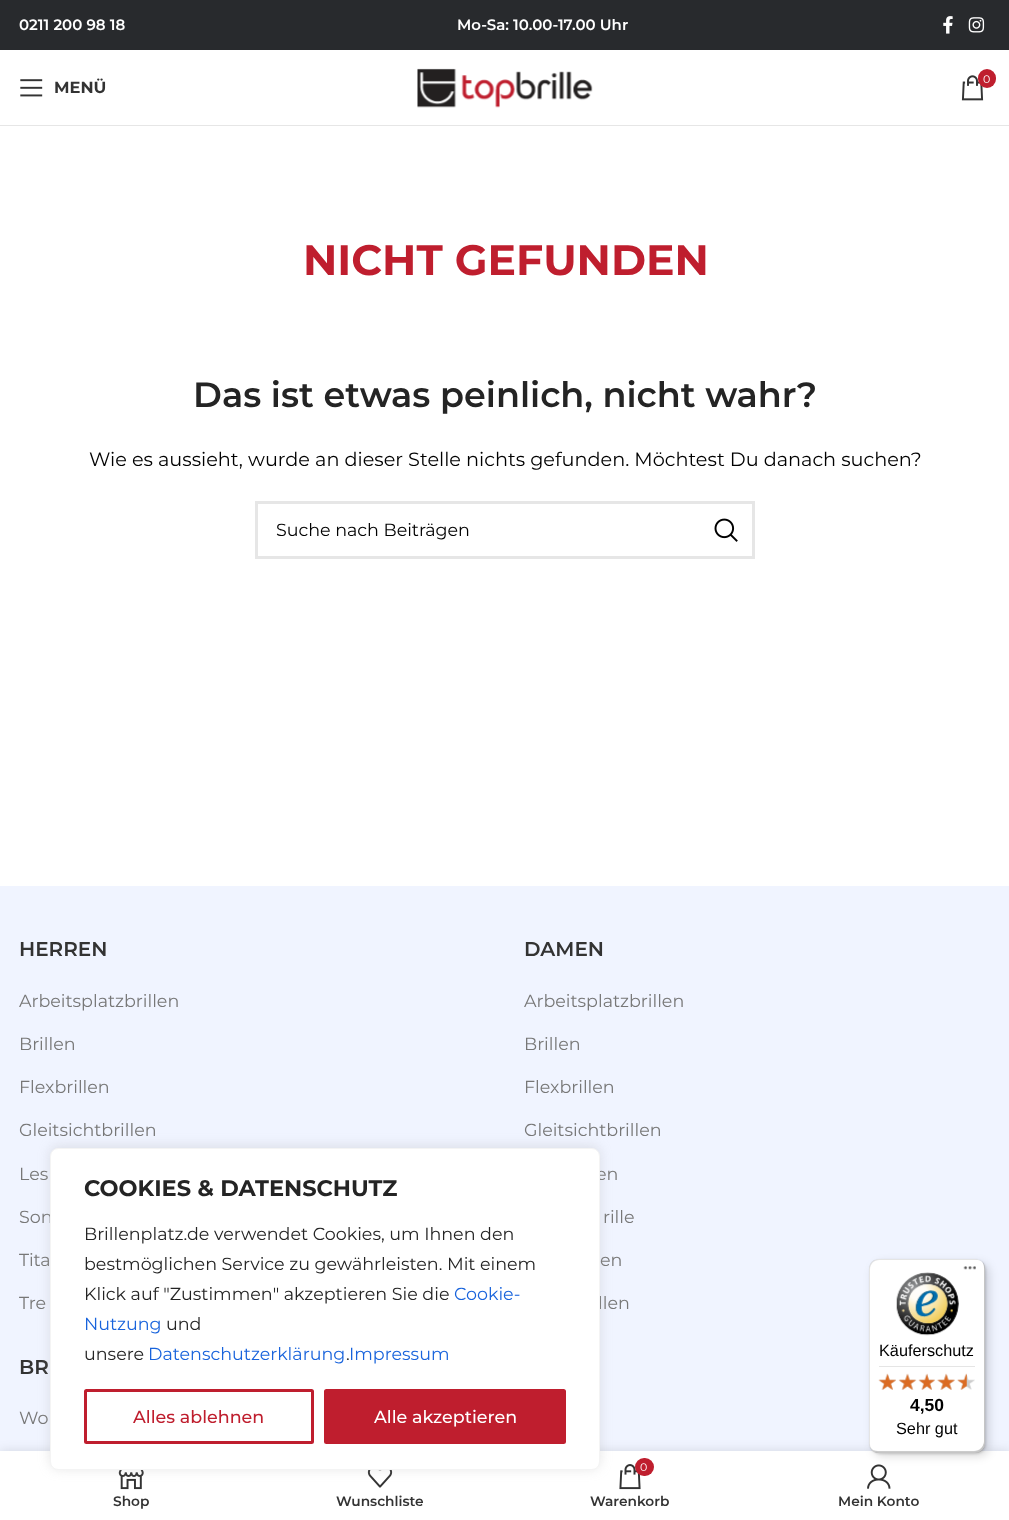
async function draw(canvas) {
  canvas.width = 1009;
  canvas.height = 1520;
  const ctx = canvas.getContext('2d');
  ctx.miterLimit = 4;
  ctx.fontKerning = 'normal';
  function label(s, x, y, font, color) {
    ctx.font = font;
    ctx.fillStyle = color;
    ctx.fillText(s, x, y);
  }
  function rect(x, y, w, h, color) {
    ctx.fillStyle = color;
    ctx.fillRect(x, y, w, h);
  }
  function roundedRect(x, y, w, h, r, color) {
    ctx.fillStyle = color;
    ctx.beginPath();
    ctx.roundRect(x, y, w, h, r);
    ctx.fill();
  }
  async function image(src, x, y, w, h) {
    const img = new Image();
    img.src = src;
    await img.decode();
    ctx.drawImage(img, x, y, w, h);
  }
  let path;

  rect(0, 0, 1009, 1520, '#fff');
  rect(0, 0, 1009, 50, '#282a2d');
  label('0211 200 98 18', 19, 30, '600 15px Montserrat', '#fff');
  label('Mo-Sa: 10.00-17.00 Uhr', 457, 30, '600 15px Montserrat', '#fff');
  await image('assets/img1.png', 943, 16, 10, 18);
  await image('assets/img2.png', 968, 17, 17, 16);
  rect(0, 125, 1009, 1, '#e6e6e6');
  await image('assets/img3.png', 20, 79, 23, 18);
  label('MENÜ', 54, 93, 'bold 16.25px Montserrat', '#333');
  await image('assets/img4.png', 417, 68, 176, 40);
  await image('assets/img5.png', 961, 75, 23, 26);
  roundedRect(978, 69, 18, 19, 9, '#bf1e2e');
  label('0', 983, 83, '11px Montserrat', '#fff');
  label('NICHT GEFUNDEN', 303, 275, 'bold 42.5px Montserrat', '#bf1e2e');
  label('Das ist etwas peinlich, nicht wahr?', 193, 407, '600 35px Montserrat', '#242424');
  label('Wie es aussieht, wurde an dieser Stelle nichts gefunden. Möchtest Du danach suchen?', 89, 466, '19.25px Montserrat', '#000');
  ctx.strokeStyle = '#e6e6e6';
  ctx.lineWidth = 3;
  ctx.strokeRect(256.5, 502.5, 497, 55);
  label('Suche nach Beiträgen', 276, 536, '17.5px Montserrat', '#000');
  await image('assets/img6.png', 714, 518, 24, 24);
  rect(0, 886, 1009, 565, '#f0f4ff');
  label('HERREN', 19, 956, '600 20px Montserrat', '#333');
  label('Arbeitsplatzbrillen', 19, 1007, '17.5px Montserrat', '#777');
  label('Brillen', 19, 1050, '17.5px Montserrat', '#777');
  label('Flexbrillen', 19, 1093, '17.5px Montserrat', '#777');
  label('Gleitsichtbrillen', 19, 1136, '17.5px Montserrat', '#777');
  label('Les', 19, 1180, '17.5px Montserrat', '#777');
  label('Son', 19, 1223, '17.5px Montserrat', '#777');
  label('Tita', 19, 1266, '17.5px Montserrat', '#777');
  label('Tre', 19, 1309, '17.5px Montserrat', '#777');
  label('DAMEN', 524, 956, '600 20px Montserrat', '#333');
  label('Arbeitsplatzbrillen', 524, 1007, '17.5px Montserrat', '#777');
  label('Brillen', 524, 1050, '17.5px Montserrat', '#777');
  label('Flexbrillen', 524, 1093, '17.5px Montserrat', '#777');
  label('Gleitsichtbrillen', 524, 1136, '17.5px Montserrat', '#777');
  label('en', 596, 1180, '17.5px Montserrat', '#777');
  label('rille', 603, 1223, '17.5px Montserrat', '#777');
  label('en', 600, 1266, '17.5px Montserrat', '#777');
  label('llen', 598, 1309, '17.5px Montserrat', '#777');
  label('BR', 19, 1374, '600 20px Montserrat', '#333');
  label('Wo', 19, 1424, '17.5px Montserrat', '#777');
  ctx.fillStyle = '#0000001f';
  ctx.filter = 'blur(5.5px)';
  ctx.beginPath();
  ctx.rect(0, 1451, 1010, 69);
  ctx.fill();
  ctx.filter = 'none';
  rect(0, 1451, 1009, 69, '#fff');
  await image('assets/img19.png', 118, 1470, 26, 20);
  await image('assets/img20.png', 367, 1470, 26, 18);
  ctx.fillStyle = '#acabab4d';
  ctx.filter = 'blur(6px)';
  ctx.beginPath();
  ctx.roundRect(50, 1146, 550, 323, 8);
  ctx.fill();
  ctx.filter = 'none';
  ctx.fillStyle = '#fff';
  ctx.beginPath();
  ctx.roundRect(50.5, 1148.5, 549, 321, 7.5);
  ctx.fill();
  ctx.strokeStyle = '#f4f4f4';
  ctx.lineWidth = 1;
  ctx.stroke();
  label('COOKIES & DATENSCHUTZ', 84, 1196, 'bold 22.5px Montserrat', '#242424');
  label('Brillenplatz.de verwendet Cookies, um Ihnen den', 84, 1240, '17.5px Montserrat', '#242424');
  label('bestmöglichen Service zu gewährleisten. Mit einem', 84, 1270, '17.5px Montserrat', '#242424');
  label('Klick auf "Zustimmen" akzeptieren Sie die', 84, 1300, '17.5px Montserrat', '#242424');
  label('Cookie-', 454, 1300, '17.5px Montserrat', '#1863dc');
  label('Nutzung', 84, 1330, '17.5px Montserrat', '#1863dc');
  label('und', 166, 1330, '17.5px Montserrat', '#242424');
  label('unsere', 84, 1360, '17.5px Montserrat', '#242424');
  label('Datenschutzerklärung', 148, 1360, '17.5px Montserrat', '#1863dc');
  label('.', 346, 1360, '17.5px Montserrat', '#242424');
  label('Impressum', 349, 1360, '17.5px Montserrat', '#1863dc');
  ctx.beginPath();
  ctx.roundRect(85.5, 1390.5, 227, 52, 1);
  ctx.strokeStyle = '#bf1e2e';
  ctx.lineWidth = 3;
  ctx.stroke();
  label('Alles ablehnen', 133, 1423, '500 17.5px Montserrat', '#bf1e2e');
  ctx.beginPath();
  ctx.roundRect(325.5, 1390.5, 239, 52, 1);
  ctx.fill();
  ctx.stroke();
  label('Alle akzeptieren', 374, 1423, '500 17.5px Montserrat', '#fff');
  await image('assets/img22.png', 867, 1464, 24, 25);
  ctx.fillStyle = '#00000026';
  ctx.filter = 'blur(5px)';
  ctx.beginPath();
  ctx.roundRect(873, 1263, 116, 193, 10);
  ctx.fill();
  ctx.filter = 'none';
  ctx.filter = 'blur(1px)';
  ctx.beginPath();
  ctx.roundRect(870, 1260, 116, 194, 10);
  ctx.fill();
  ctx.filter = 'none';
  roundedRect(869, 1259, 116, 194, 10, '#fff');
  ctx.fillStyle = '#0000001a';
  path = new Path2D('M880 1260H976C978 1260 980 1260 981 1261C980 1260 977 1259 975 1259H879C873 1259 869 1263 869 1269V1443C869 1446 870 1449 873 1451C871 1449 870 1446 870 1444V1270C870 1264 874 1260 880 1260Z');
  ctx.fill(path);
  ctx.fillStyle = '#00000033';
  path = new Path2D('M870 1447C872 1451 875 1453 879 1453H975C981 1453 985 1449 985 1443V1269C985 1266 984 1263 982 1261C983 1263 984 1265 984 1268V1441C984 1447 979 1451 974 1451H878C875 1451 872 1450 870 1447Z');
  ctx.fill(path);
  ctx.fillStyle = '#32323233';
  path = new Path2D('M871 1450C873 1452 876 1453 879 1453H975C981 1453 985 1449 985 1443V1269C985 1267 984 1264 983 1263C984 1264 984 1266 984 1268V1442C984 1447 980 1452 974 1452H878C875 1452 873 1451 871 1450Z');
  ctx.fill(path);
  ctx.fillStyle = '#ffffff4d';
  path = new Path2D('M870 1448C872 1451 875 1453 879 1453H975C981 1453 985 1449 985 1443V1269C985 1266 984 1263 981 1261C983 1263 984 1266 984 1268V1442C984 1447 980 1452 974 1452H878C875 1452 872 1450 870 1448Z');
  ctx.fill(path);
  await image('assets/img7.png', 963, 1266, 13, 4);
  await image('assets/img8.png', 896, 1272, 63, 64);
  label('Käuferschutz', 879, 1356, '16.25px Liberation Sans', '#000');
  rect(879, 1366, 96, 1, '#e5e5e5');
  await image('assets/img14.png', 879, 1374, 17, 16);
  await image('assets/img9.png', 878, 1373, 18, 17);
  await image('assets/img15.png', 899, 1374, 17, 16);
  await image('assets/img10.png', 898, 1373, 19, 17);
  await image('assets/img16.png', 919, 1374, 16, 16);
  await image('assets/img11.png', 918, 1373, 17, 17);
  await image('assets/img17.png', 937, 1374, 18, 16);
  await image('assets/img12.png', 937, 1373, 18, 17);
  await image('assets/img18.png', 957, 1374, 18, 16);
  await image('assets/img13.png', 957, 1373, 10, 17);
  label('4,50', 910, 1411, 'bold 17.5px Liberation Sans', '#000');
  label('Sehr gut', 896, 1434, '16.25px Liberation Sans', '#000');
  label('Shop', 113, 1506, '600 13.75px Montserrat', '#333');
  label('Wunschliste', 336, 1506, '600 13.75px Montserrat', '#333');
  await image('assets/img21.png', 619, 1464, 22, 26);
  roundedRect(635, 1458, 19, 18, 9, '#bf1e2e');
  label('0', 640, 1471, '11px Montserrat', '#fff');
  label('Warenkorb', 590, 1506, '600 13.75px Montserrat', '#333');
  label('Mein Konto', 838, 1506, '600 13.75px Montserrat', '#333');
}

draw(document.querySelector('canvas'));
